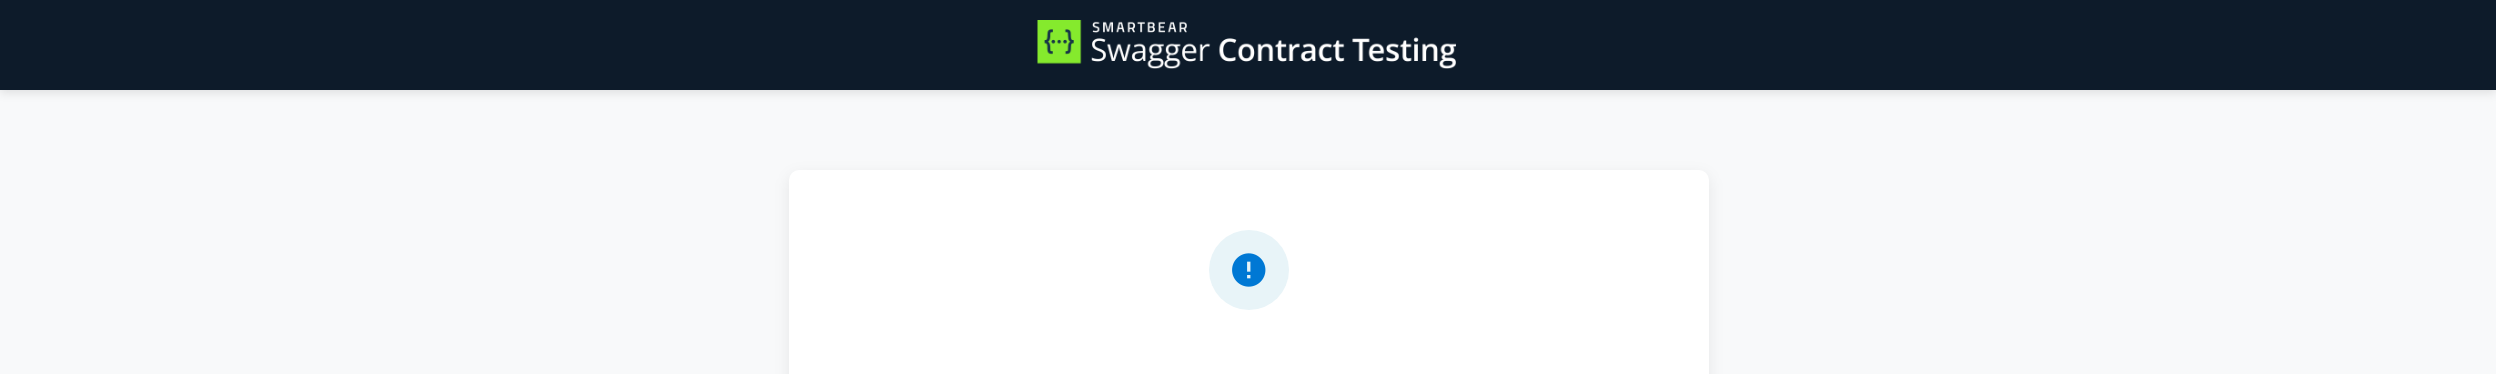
async function draw(canvas) {
  canvas.width = 2496;
  canvas.height = 374;
  const ctx = canvas.getContext('2d');
  ctx.miterLimit = 4;
  ctx.fontKerning = 'normal';
  function rect(x, y, w, h, color) {
    ctx.fillStyle = color;
    ctx.fillRect(x, y, w, h);
  }
  function roundedRect(x, y, w, h, r, color) {
    ctx.fillStyle = color;
    ctx.beginPath();
    ctx.roundRect(x, y, w, h, r);
    ctx.fill();
  }
  async function image(src, x, y, w, h) {
    const img = new Image();
    img.src = src;
    await img.decode();
    ctx.drawImage(img, x, y, w, h);
  }

  rect(0, 0, 2496, 374, '#f8f9fa');
  ctx.fillStyle = '#0000001a';
  ctx.filter = 'blur(5px)';
  ctx.beginPath();
  ctx.rect(0, 3, 2496, 90);
  ctx.fill();
  ctx.filter = 'none';
  rect(0, 0, 2496, 90, '#0d1b2a');
  await image('assets/img1.png', 1037, 20, 419, 49);
  ctx.fillStyle = '#00000014';
  ctx.filter = 'blur(7.5px)';
  ctx.beginPath();
  ctx.roundRect(789, 175, 920, 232, 10);
  ctx.fill();
  ctx.filter = 'none';
  roundedRect(789, 170, 920, 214, 10, '#fff');
  ctx.fillStyle = '#e8f4f8';
  ctx.beginPath();
  ctx.arc(1249, 270, 40, 0, 2 * Math.PI);
  ctx.fill();
  await image('assets/img2.png', 1232, 253, 34, 34);
}

draw(document.querySelector('canvas'));
